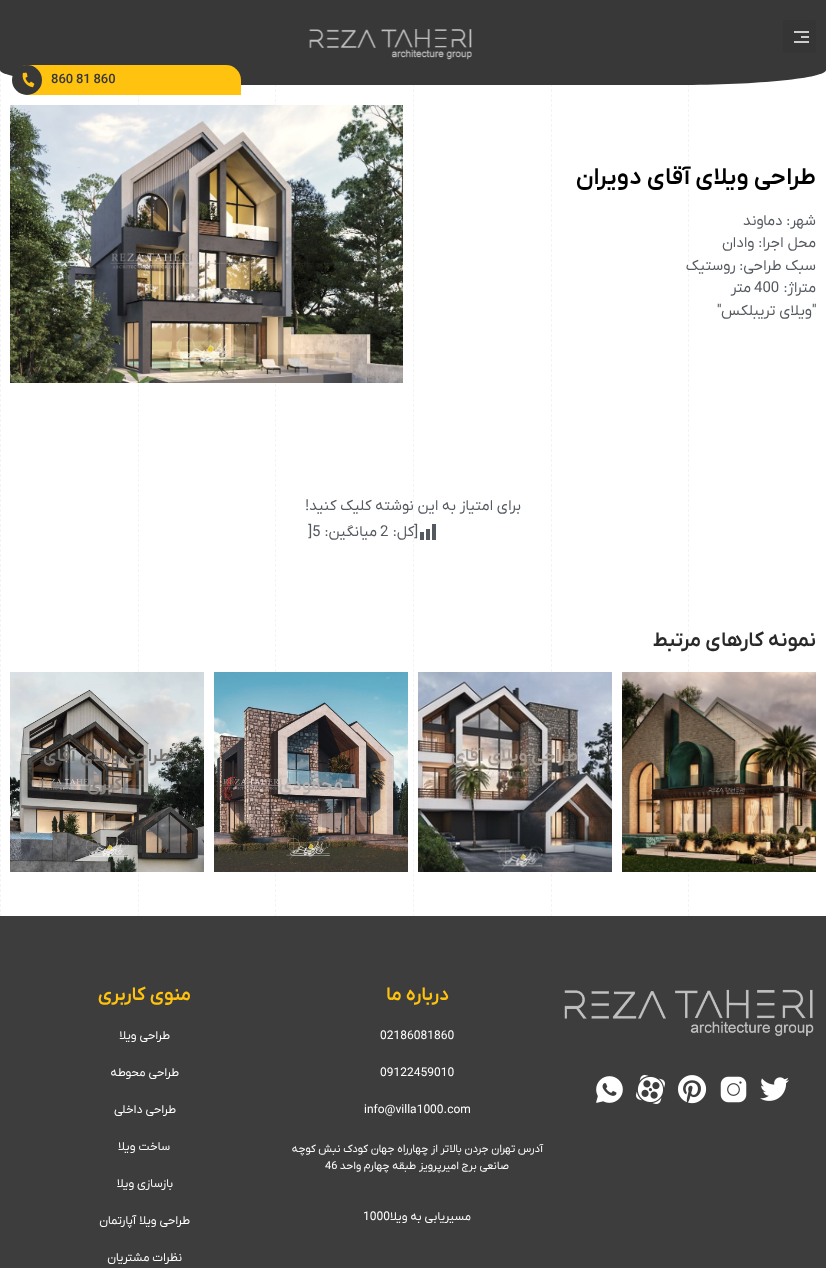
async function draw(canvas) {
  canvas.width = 826;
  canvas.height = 1268;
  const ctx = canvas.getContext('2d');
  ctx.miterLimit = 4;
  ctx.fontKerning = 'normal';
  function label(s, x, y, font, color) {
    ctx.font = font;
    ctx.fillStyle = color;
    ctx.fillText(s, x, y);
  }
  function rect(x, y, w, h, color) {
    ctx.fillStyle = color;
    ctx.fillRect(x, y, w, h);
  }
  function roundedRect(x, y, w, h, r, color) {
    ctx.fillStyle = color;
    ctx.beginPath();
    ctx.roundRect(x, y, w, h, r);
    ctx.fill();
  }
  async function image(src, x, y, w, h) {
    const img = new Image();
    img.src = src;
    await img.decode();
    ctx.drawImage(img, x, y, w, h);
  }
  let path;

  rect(0, 0, 826, 1268, '#fff');
  path = new Path2D('M688.5-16V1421');
  ctx.strokeStyle = '#f4f4f4';
  ctx.setLineDash([3, 2]);
  ctx.stroke(path);
  path = new Path2D('M551.5-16V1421');
  ctx.stroke(path);
  path = new Path2D('M413.5-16V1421');
  ctx.stroke(path);
  path = new Path2D('M275.5-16V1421');
  ctx.stroke(path);
  path = new Path2D('M138.5-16V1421');
  ctx.stroke(path);
  path = new Path2D('M.5-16V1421');
  ctx.stroke(path);
  ctx.fillStyle = '#383838';
  path = new Path2D('M0 0H826V70C826 78 759 85 677 85H149C67 85 0 78 0 70Z');
  ctx.fill(path);
  roundedRect(783, 20, 33, 33, 3, '#353535');
  rect(794, 31, 15, 2, '#cdcdcd');
  rect(801, 36, 8, 2, '#cdcdcd');
  rect(794, 41, 15, 2, '#cdcdcd');
  await image('assets/img1.png', 309, 29, 163, 31);
  ctx.fillStyle = '#ffc20e';
  ctx.beginPath();
  ctx.roundRect(13, 65, 228, 30, [15, 15, 0, 15]);
  ctx.fill();
  label('860 81 860', 51, 83, '600 13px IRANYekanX', '#383838');
  ctx.beginPath();
  ctx.arc(27, 80, 15, 0, 2 * Math.PI);
  ctx.fill();
  await image('assets/img2.png', 22, 72, 13, 16);
  ctx.direction = 'rtl';
  label('طراحی ویلای آقای دویران', 816, 184, '600 24px IRANYekanX', '#000');
  label('شهر: دماوند', 816, 225, '15px IRANYekanX', '#54595f');
  label('محل اجرا: وادان', 816, 247, '15px IRANYekanX', '#54595f');
  label('سبک طراحی: روستیک', 816, 270, '15px IRANYekanX', '#54595f');
  label('متراژ:', 816, 292, '15px IRANYekanX', '#54595f');
  ctx.direction = 'ltr';
  label('400', 754, 292, '15px IRANYekanX', '#54595f');
  ctx.direction = 'rtl';
  label('متر', 751, 292, '15px IRANYekanX', '#54595f');
  label('"ویلای تریبلکس"', 816, 315, '15px IRANYekanX', '#54595f');
  await image('assets/img3.png', 10, 105, 393, 278);
  label('برای امتیاز به این نوشته کلیک کنید!', 521, 510, '15px IRANYekanX', '#54595f');
  await image('assets/img4.png', 420, 524, 16, 16);
  label('[کل:', 418, 536, '15px IRANYekanX', '#54595f');
  ctx.direction = 'ltr';
  label('2', 380, 536, '15px IRANYekanX', '#54595f');
  ctx.direction = 'rtl';
  label('میانگین:', 377, 536, '15px IRANYekanX', '#54595f');
  ctx.direction = 'ltr';
  label('5', 312, 536, '15px IRANYekanX', '#54595f');
  label(']', 308, 536, '15px IRANYekanX', '#54595f');
  ctx.direction = 'rtl';
  label('نمونه کارهای مرتبط', 816, 646, '600 20.5px IRANYekanX', '#292929');
  await image('assets/img5.png', 622, 672, 194, 200);
  await image('assets/img6.png', 418, 672, 194, 200);
  label('طراحی ویلای آقای', 578, 761, '600 18px IRANYekanX', '#a39890');
  await image('assets/img7.png', 10, 672, 194, 200);
  label('طراحی ویلای آقای', 170, 761, '600 18px IRANYekanX', '#797571');
  label('اکبری', 127, 790, '600 18px IRANYekanX', '#88817c');
  await image('assets/img8.png', 214, 672, 194, 200);
  label('محمودی', 343, 790, '600 18px IRANYekanX', '#b3afae');
  rect(0, 916, 826, 352, '#3d3d3d');
  await image('assets/img9.png', 564, 989, 250, 47);
  await image('assets/img10.png', 760, 1077, 29, 24);
  await image('assets/img11.png', 720, 1076, 27, 27);
  await image('assets/img12.png', 678, 1075, 29, 29);
  await image('assets/img13.png', 636, 1075, 29, 29);
  await image('assets/img14.png', 596, 1076, 27, 27);
  label('درباره ما', 449, 1000, '600 19px IRANYekanX', '#ffc20e');
  ctx.direction = 'ltr';
  label('02186081860', 380, 1039, '12px IRANYekanX', '#fff');
  label('09122459010', 380, 1076, '12px IRANYekanX', '#fff');
  label('info@villa1000.com', 364, 1113, '12px IRANYekanX', '#fff');
  ctx.direction = 'rtl';
  label('آدرس تهران جردن بالاتر از چهارراه جهان کودک نبش کوچه', 543, 1152, '11px IRANYekanX', '#fff');
  label('صانعی برج امیرپرویز طبقه چهارم واحد', 509, 1169, '11px IRANYekanX', '#fff');
  ctx.direction = 'ltr';
  label('46', 325, 1169, '11px IRANYekanX', '#fff');
  ctx.direction = 'rtl';
  label('مسیریابی به ویلا', 471, 1220, '12px IRANYekanX', '#fff');
  ctx.direction = 'ltr';
  label('1000', 363, 1220, '12px IRANYekanX', '#fff');
  ctx.direction = 'rtl';
  label('منوی کاربری', 191, 1000, '600 19px IRANYekanX', '#ffc20e');
  label('طراحی ویلا', 170, 1039, '12px IRANYekanX', '#fff');
  label('طراحی محوطه', 179, 1076, '12px IRANYekanX', '#fff');
  label('طراحی داخلی', 176, 1113, '12px IRANYekanX', '#fff');
  label('ساخت ویلا', 170, 1150, '12px IRANYekanX', '#fff');
  label('بازسازی ویلا', 173, 1187, '12px IRANYekanX', '#fff');
  label('طراحی ویلا آپارتمان', 190, 1224, '12px IRANYekanX', '#fff');
  label('نظرات مشتریان', 182, 1261, '12px IRANYekanX', '#fff');
}

draw(document.querySelector('canvas'));
